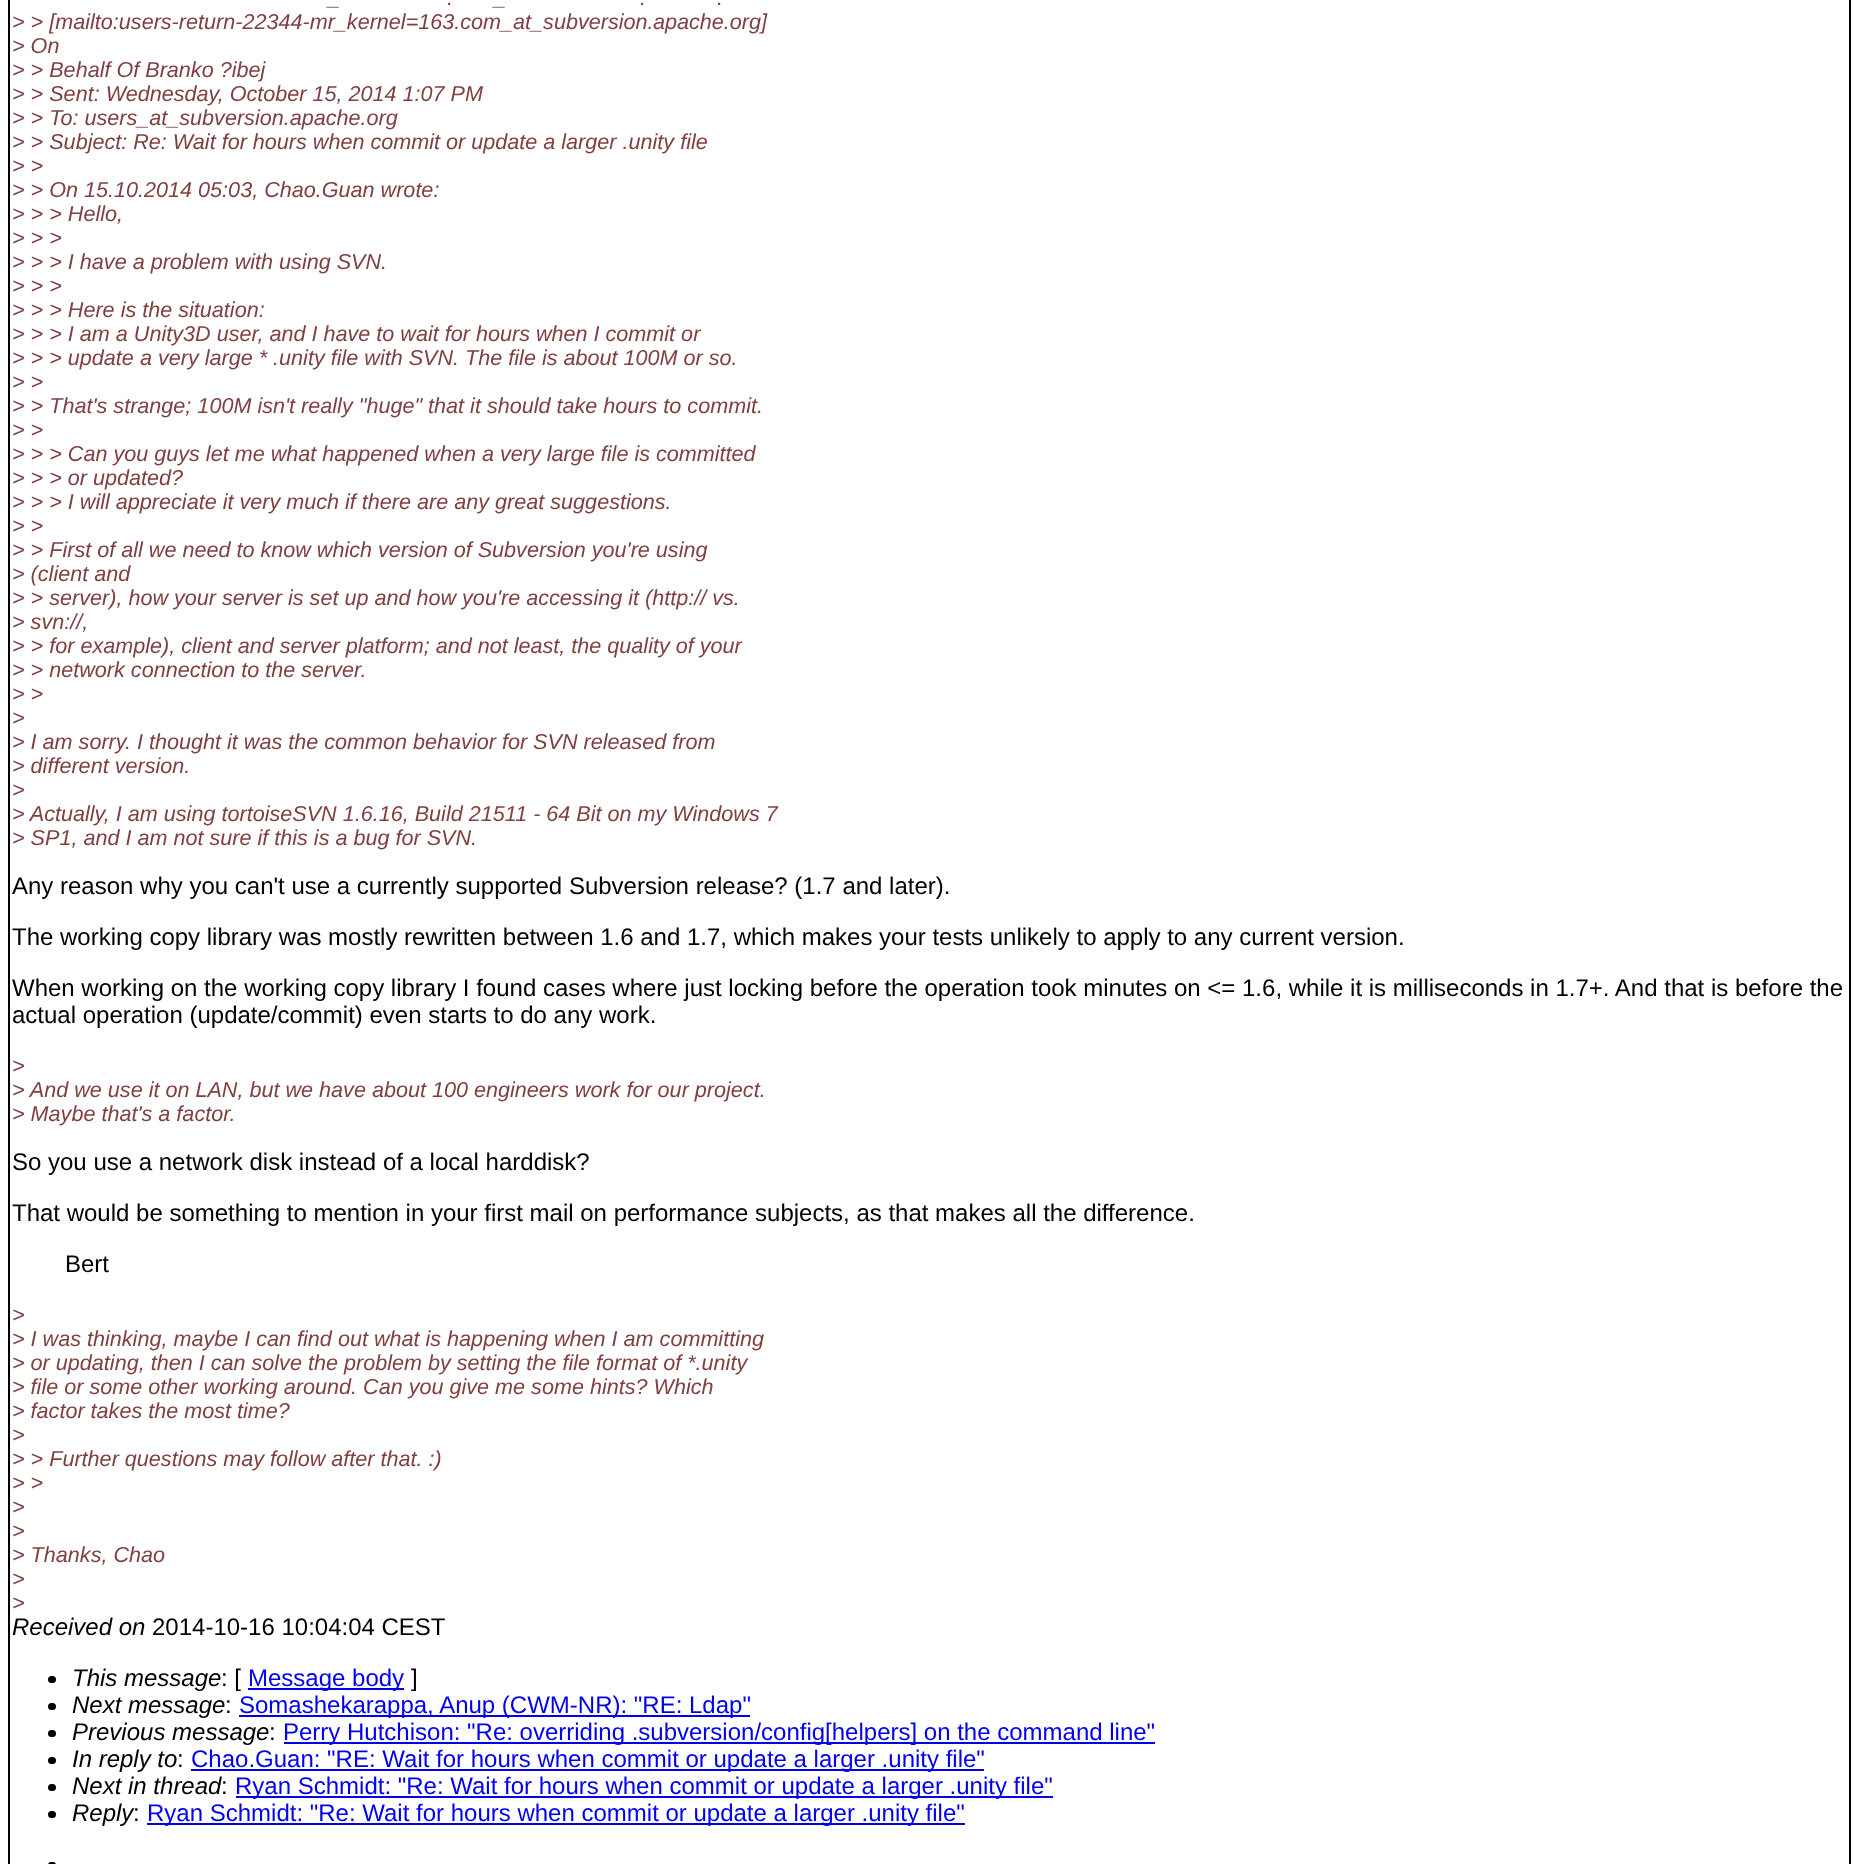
async function draw(canvas) {
  canvas.width = 1864;
  canvas.height = 1864;
  const ctx = canvas.getContext('2d');
  ctx.miterLimit = 4;
  ctx.fontKerning = 'normal';
  function label(s, x, y, font, color) {
    ctx.font = font;
    ctx.fillStyle = color;
    ctx.fillText(s, x, y);
  }
  function rect(x, y, w, h, color) {
    ctx.fillStyle = color;
    ctx.fillRect(x, y, w, h);
  }
  function roundedRect(x, y, w, h, r, color) {
    ctx.fillStyle = color;
    ctx.beginPath();
    ctx.roundRect(x, y, w, h, r);
    ctx.fill();
  }

  rect(0, 0, 1864, 1864, '#fff');
  ctx.strokeStyle = '#000';
  ctx.lineWidth = 2;
  ctx.strokeRect(9, -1, 1841, 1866);
  label('.', 447, 5, 'italic 21.6px Liberation Sans', '#804040');
  label('.', 640, 5, 'italic 21.6px Liberation Sans', '#804040');
  label('.', 717, 5, 'italic 21.6px Liberation Sans', '#804040');
  label('_', 328, 5, 'italic 21.6px Liberation Sans', '#804040');
  label('_', 494, 5, 'italic 21.6px Liberation Sans', '#804040');
  label('> > [mailto:users-return-22344-mr_kernel=163.com_at_subversion.', 12, 29, 'italic 21.6px Liberation Sans', '#804040');
  label('apache.org]', 653, 29, 'italic 21.6px Liberation Sans', '#804040');
  label('> On', 12, 53, 'italic 21.6px Liberation Sans', '#804040');
  label('> > Behalf Of Branko ?ibej', 12, 77, 'italic 21.6px Liberation Sans', '#804040');
  label('> > Sent: Wednesday, October 15, 2014 1:07 PM', 12, 101, 'italic 21.6px Liberation Sans', '#804040');
  label('> > To: users_at_subversion.apache.org', 12, 125, 'italic 21.6px Liberation Sans', '#804040');
  label('> > Subject: Re: Wait for hours when commit or update a larger .unity file', 12, 149, 'italic 21.6px Liberation Sans', '#804040');
  label('> >', 12, 173, 'italic 21.6px Liberation Sans', '#804040');
  label('> > On 15.10.2014 05:03, Chao.Guan wrote:', 12, 197, 'italic 21.6px Liberation Sans', '#804040');
  label('> > > Hello,', 12, 221, 'italic 21.6px Liberation Sans', '#804040');
  label('> > >', 12, 245, 'italic 21.6px Liberation Sans', '#804040');
  label('> > > I have a problem with using SVN.', 12, 269, 'italic 21.6px Liberation Sans', '#804040');
  label('> > >', 12, 293, 'italic 21.6px Liberation Sans', '#804040');
  label('> > > Here is the situation:', 12, 317, 'italic 21.6px Liberation Sans', '#804040');
  label('> > > I am a Unity3D user, and I have to wait for hours when I commit or', 12, 341, 'italic 21.6px Liberation Sans', '#804040');
  label('> > > update a very large * .unity file with SVN. The file is about 100M or so.', 12, 365, 'italic 21.6px Liberation Sans', '#804040');
  label('> >', 12, 389, 'italic 21.6px Liberation Sans', '#804040');
  label('> > That\'s strange; 100M isn\'t really "huge" that it should take hours to commit.', 12, 413, 'italic 21.6px Liberation Sans', '#804040');
  label('> >', 12, 437, 'italic 21.6px Liberation Sans', '#804040');
  label('> > > Can you guys let me what happened when a very large file is committed', 12, 461, 'italic 21.6px Liberation Sans', '#804040');
  label('> > > or updated?', 12, 485, 'italic 21.6px Liberation Sans', '#804040');
  label('> > > I will appreciate it very much if there are any great suggestions.', 12, 509, 'italic 21.6px Liberation Sans', '#804040');
  label('> >', 12, 533, 'italic 21.6px Liberation Sans', '#804040');
  label('> > First of all we need to know which version of Subversion you\'re using', 12, 557, 'italic 21.6px Liberation Sans', '#804040');
  label('> (client and', 12, 581, 'italic 21.6px Liberation Sans', '#804040');
  label('> > server), how your server is set up and how you\'re accessing it (http:// vs.', 12, 605, 'italic 21.6px Liberation Sans', '#804040');
  label('> svn://,', 12, 629, 'italic 21.6px Liberation Sans', '#804040');
  label('> > for example), client and server platform; and not least, the quality of your', 12, 653, 'italic 21.6px Liberation Sans', '#804040');
  label('> > network connection to the server.', 12, 677, 'italic 21.6px Liberation Sans', '#804040');
  label('> >', 12, 701, 'italic 21.6px Liberation Sans', '#804040');
  label('>', 12, 725, 'italic 21.6px Liberation Sans', '#804040');
  label('> I am sorry. I thought it was the common behavior for SVN released from', 12, 749, 'italic 21.6px Liberation Sans', '#804040');
  label('> different version.', 12, 773, 'italic 21.6px Liberation Sans', '#804040');
  label('>', 12, 797, 'italic 21.6px Liberation Sans', '#804040');
  label('> Actually, I am using tortoiseSVN 1.6.16, Build 21511 - 64 Bit on my Windows 7', 12, 821, 'italic 21.6px Liberation Sans', '#804040');
  label('> SP1, and I am not sure if this is a bug for SVN.', 12, 845, 'italic 21.6px Liberation Sans', '#804040');
  label('Any reason why you can\'t use a currently supported Subversion release? (1.7 and later).', 12, 894, '24px Liberation Sans', '#000');
  label('The working copy library was mostly rewritten between 1.6 and 1.7, which makes your tests unlikely to apply to any current version.', 12, 945, '24px Liberation Sans', '#000');
  label('When working on the working copy library I found cases where just locking before the operation took minutes on <= 1.6, while it is milliseconds in 1.7+. And that is before the', 12, 996, '24px Liberation Sans', '#000');
  label('actual operation (update/commit) even starts to do any work.', 12, 1023, '24px Liberation Sans', '#000');
  label('>', 12, 1073, 'italic 21.6px Liberation Sans', '#804040');
  label('> And we use it on LAN, but we have about 100 engineers work for our project.', 12, 1097, 'italic 21.6px Liberation Sans', '#804040');
  label('> Maybe that\'s a factor.', 12, 1121, 'italic 21.6px Liberation Sans', '#804040');
  label('So you use a network disk instead of a local harddisk?', 12, 1170, '24px Liberation Sans', '#000');
  label('That would be something to mention in your first mail on performance subjects, as that makes all the difference.', 12, 1221, '24px Liberation Sans', '#000');
  label('Bert', 65, 1272, '24px Liberation Sans', '#000');
  label('>', 12, 1322, 'italic 21.6px Liberation Sans', '#804040');
  label('> I was thinking, maybe I can find out what is happening when I am committing', 12, 1346, 'italic 21.6px Liberation Sans', '#804040');
  label('> or updating, then I can solve the problem by setting the file format of *.unity', 12, 1370, 'italic 21.6px Liberation Sans', '#804040');
  label('> file or some other working around. Can you give me some hints? Which', 12, 1394, 'italic 21.6px Liberation Sans', '#804040');
  label('> factor takes the most time?', 12, 1418, 'italic 21.6px Liberation Sans', '#804040');
  label('>', 12, 1442, 'italic 21.6px Liberation Sans', '#804040');
  label('> > Further questions may follow after that. :)', 12, 1466, 'italic 21.6px Liberation Sans', '#804040');
  label('> >', 12, 1490, 'italic 21.6px Liberation Sans', '#804040');
  label('>', 12, 1514, 'italic 21.6px Liberation Sans', '#804040');
  label('>', 12, 1538, 'italic 21.6px Liberation Sans', '#804040');
  label('> Thanks, Chao', 12, 1562, 'italic 21.6px Liberation Sans', '#804040');
  label('>', 12, 1586, 'italic 21.6px Liberation Sans', '#804040');
  label('>', 12, 1610, 'italic 21.6px Liberation Sans', '#804040');
  label('Received on', 12, 1635, 'italic 24px Liberation Sans', '#000');
  label('2014-10-16 10:04:04 CEST', 152, 1635, '24px Liberation Sans', '#000');
  roundedRect(48, 1676, 8, 7, 3.5, '#000');
  label('This message', 72, 1686, 'italic 24px Liberation Sans', '#000');
  label(': [', 221, 1686, '24px Liberation Sans', '#000');
  rect(248, 1688, 156, 2, '#00e');
  label('Message body', 248, 1686, '24px Liberation Sans', '#00e');
  label(']', 411, 1686, '24px Liberation Sans', '#000');
  roundedRect(48, 1703, 8, 7, 3.5, '#000');
  label('Next message', 72, 1713, 'italic 24px Liberation Sans', '#000');
  label(':', 225, 1713, '24px Liberation Sans', '#000');
  rect(239, 1715, 511, 2, '#00e');
  label('Somashekarappa, Anup (CWM-NR): "RE: Ldap"', 239, 1713, '24px Liberation Sans', '#00e');
  roundedRect(48, 1730, 8, 7, 3.5, '#000');
  label('Previous message', 72, 1740, 'italic 24px Liberation Sans', '#000');
  label(':', 269, 1740, '24px Liberation Sans', '#000');
  rect(284, 1742, 871, 2, '#00e');
  label('Perry Hutchison: "Re: overriding .subversion/config[helpers] on the command line"', 283, 1740, '24px Liberation Sans', '#00e');
  roundedRect(48, 1757, 8, 7, 3.5, '#000');
  label('In reply to', 72, 1767, 'italic 24px Liberation Sans', '#000');
  label(':', 177, 1767, '24px Liberation Sans', '#000');
  rect(191, 1769, 793, 2, '#00e');
  label('Chao.Guan: "RE: Wait for hours when commit or update a larger .unity file"', 191, 1767, '24px Liberation Sans', '#00e');
  roundedRect(48, 1784, 8, 7, 3.5, '#000');
  label('Next in thread', 72, 1794, 'italic 24px Liberation Sans', '#000');
  label(':', 221, 1794, '24px Liberation Sans', '#000');
  rect(236, 1796, 817, 2, '#00e');
  label('Ryan Schmidt: "Re: Wait for hours when commit or update a larger .unity file"', 235, 1794, '24px Liberation Sans', '#00e');
  roundedRect(48, 1811, 8, 7, 3.5, '#000');
  label('Reply', 72, 1821, 'italic 24px Liberation Sans', '#000');
  label(':', 133, 1821, '24px Liberation Sans', '#000');
  rect(147, 1823, 818, 2, '#00e');
  label('Ryan Schmidt: "Re: Wait for hours when commit or update a larger .unity file"', 147, 1821, '24px Liberation Sans', '#00e');
  roundedRect(48, 1862, 8, 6, 3.5, '#000');
}

draw(document.querySelector('canvas'));
